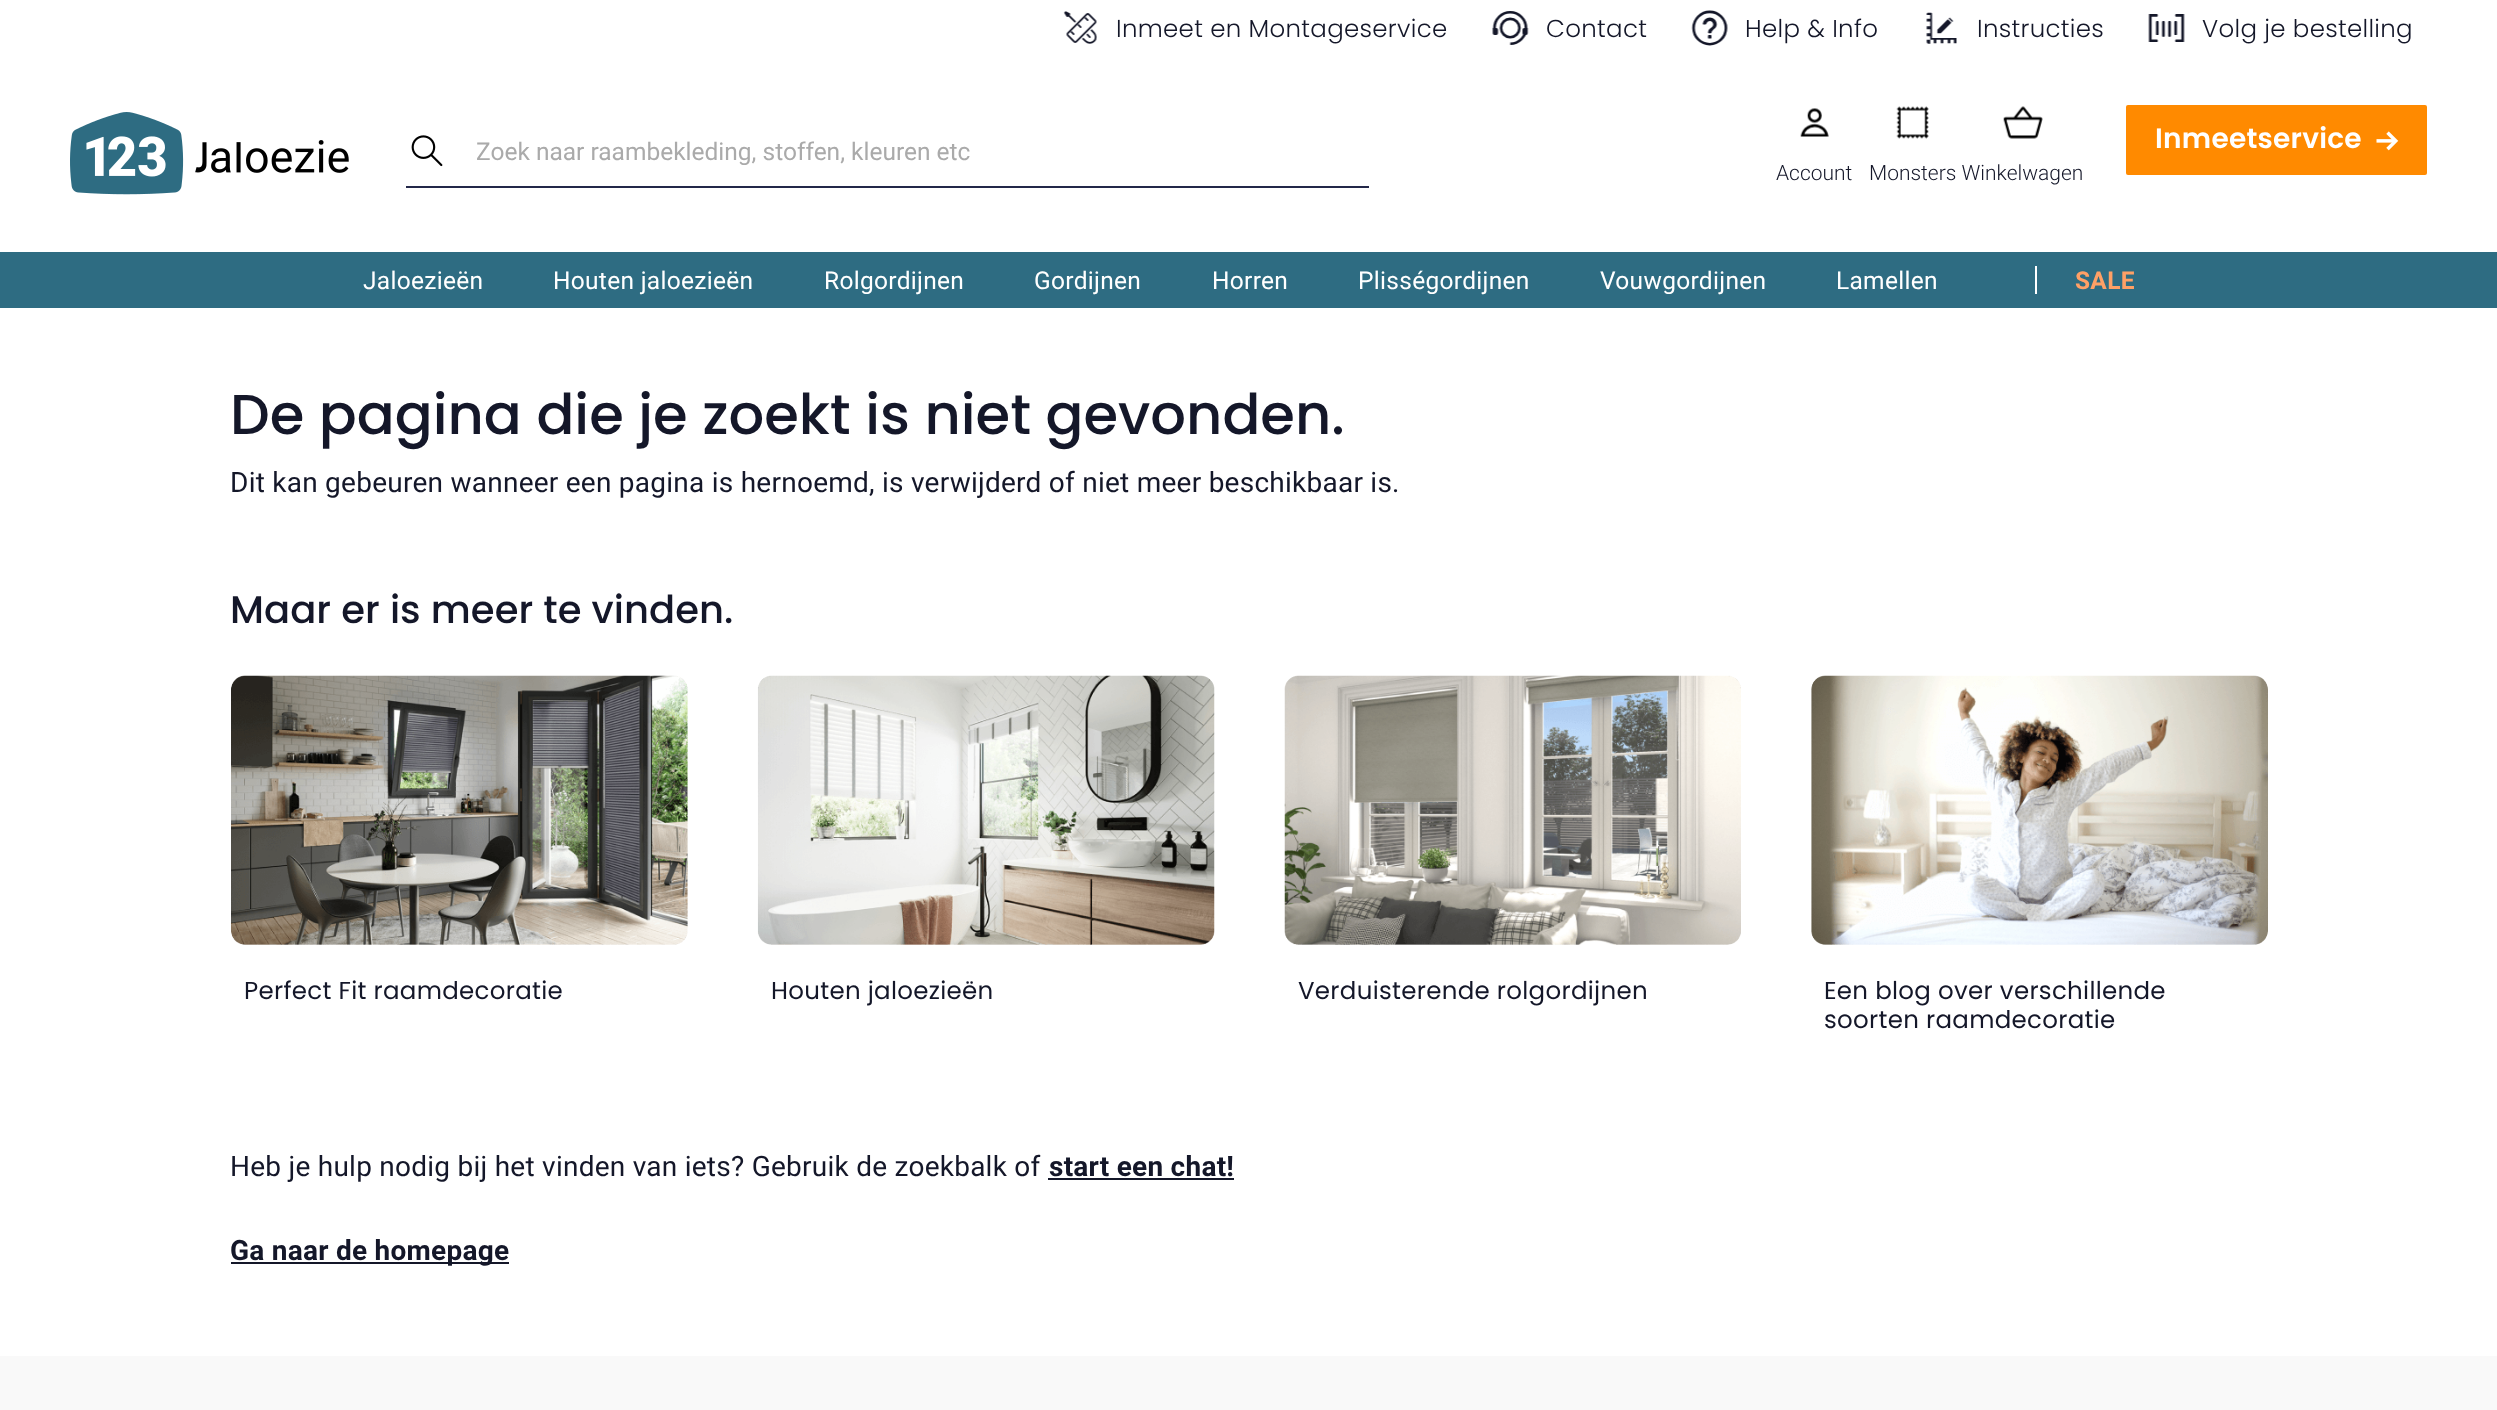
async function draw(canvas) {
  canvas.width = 2497;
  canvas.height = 1410;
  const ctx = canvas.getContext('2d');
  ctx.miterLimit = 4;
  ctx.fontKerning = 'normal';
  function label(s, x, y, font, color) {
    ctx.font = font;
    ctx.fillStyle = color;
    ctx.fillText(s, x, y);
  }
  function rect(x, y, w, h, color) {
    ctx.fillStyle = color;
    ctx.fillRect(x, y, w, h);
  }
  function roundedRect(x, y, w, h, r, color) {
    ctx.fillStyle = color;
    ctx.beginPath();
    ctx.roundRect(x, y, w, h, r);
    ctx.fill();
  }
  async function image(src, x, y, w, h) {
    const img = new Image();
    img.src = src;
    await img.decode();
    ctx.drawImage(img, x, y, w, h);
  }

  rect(0, 0, 2497, 1410, '#fff');
  await image('assets/img1.png', 1063, 11, 34, 33);
  ctx.letterSpacing = '0.3px';
  label('Inmeet en Montageservice', 1116, 37, '300 24.5px Poppins', '#141729');
  await image('assets/img2.png', 1492, 11, 37, 34);
  label('Contact', 1546, 37, '300 24.5px Poppins', '#141729');
  await image('assets/img3.png', 1691, 10, 37, 36);
  label('Help & Info', 1745, 37, '300 24.5px Poppins', '#141729');
  await image('assets/img4.png', 1926, 12, 31, 32);
  label('Instructies', 1977, 37, '300 24.5px Poppins', '#141729');
  await image('assets/img5.png', 2148, 14, 37, 28);
  label('Volg je bestelling', 2202, 37, '300 24.5px Poppins', '#141729');
  await image('assets/img6.png', 70, 112, 279, 83);
  await image('assets/img7.png', 411, 135, 32, 32);
  rect(406, 186, 963, 2, '#232849');
  ctx.letterSpacing = '0px';
  label('Zoek naar raambekleding, stoffen, kleuren etc', 476, 160, '24.5px Roboto', '#aaa');
  await image('assets/img8.png', 2003, 106, 40, 33);
  roundedRect(2126, 105, 301, 70, 2, '#ff8a00');
  ctx.letterSpacing = '0.25px';
  label('Inmeetservice', 2155, 148, '600 28px Poppins', '#fff');
  await image('assets/img9.png', 2376, 131, 23, 20);
  await image('assets/img10.png', 1800, 108, 29, 29);
  ctx.letterSpacing = '0px';
  label('Account', 1776, 180, '300 21px Roboto', '#141729');
  await image('assets/img11.png', 1896, 106, 33, 33);
  label('Monsters Winkelwagen', 1869, 180, '300 21px Roboto', '#141729');
  rect(0, 252, 2497, 56, '#2e6c82');
  ctx.letterSpacing = '0.3px';
  label('Jaloezieën', 363, 289, '24.5px Roboto', '#fff');
  label('Houten jaloezieën', 553, 289, '24.5px Roboto', '#fff');
  label('Rolgordijnen', 824, 289, '24.5px Roboto', '#fff');
  label('Gordijnen', 1034, 289, '24.5px Roboto', '#fff');
  label('Horren', 1212, 289, '24.5px Roboto', '#fff');
  label('Plisségordijnen', 1358, 289, '24.5px Roboto', '#fff');
  label('Vouwgordijnen', 1600, 289, '24.5px Roboto', '#fff');
  label('Lamellen', 1836, 289, '24.5px Roboto', '#fff');
  rect(2035, 266, 2, 28, '#fff');
  label('SALE', 2075, 289, 'bold 24.5px Roboto', '#ffa066');
  ctx.letterSpacing = '0px';
  label('De pagina die je zoekt is niet gevonden.', 230, 434, '500 56px Poppins', '#141729');
  ctx.letterSpacing = '0.25px';
  label('Dit kan gebeuren wanneer een pagina is hernoemd, is verwijderd of niet meer beschikbaar is.', 230, 492, '28px Roboto', '#141729');
  ctx.letterSpacing = '0.05px';
  label('Maar er is meer te vinden.', 230, 623, '500 38.5px Poppins', '#141729');
  await image('assets/img12.png', 231, 675, 457, 270);
  ctx.letterSpacing = '0.3px';
  label('Perfect Fit raamdecoratie', 244, 999, '24.5px Poppins', '#141729');
  await image('assets/img13.png', 757, 675, 458, 270);
  label('Houten jaloezieën', 771, 999, '24.5px Poppins', '#141729');
  await image('assets/img14.png', 1284, 675, 457, 270);
  label('Verduisterende rolgordijnen', 1298, 999, '24.5px Poppins', '#141729');
  await image('assets/img15.png', 1811, 675, 457, 270);
  label('Een blog over verschillende', 1824, 999, '24.5px Poppins', '#141729');
  label('soorten raamdecoratie', 1824, 1028, '24.5px Poppins', '#141729');
  ctx.letterSpacing = '0.25px';
  label('Heb je hulp nodig bij het vinden van iets? Gebruik de zoekbalk of', 230, 1176, '28px Roboto', '#141729');
  label('start een chat!', 1049, 1176, 'bold 28px Roboto', '#141729');
  rect(1048, 1178, 186, 2, '#141729');
  rect(231, 1262, 278, 2, '#141729');
  label('Ga naar de homepage', 230, 1260, 'bold 28px Roboto', '#141729');
  rect(0, 1356, 2497, 54, '#f9f9f9');
}

draw(document.querySelector('canvas'));
